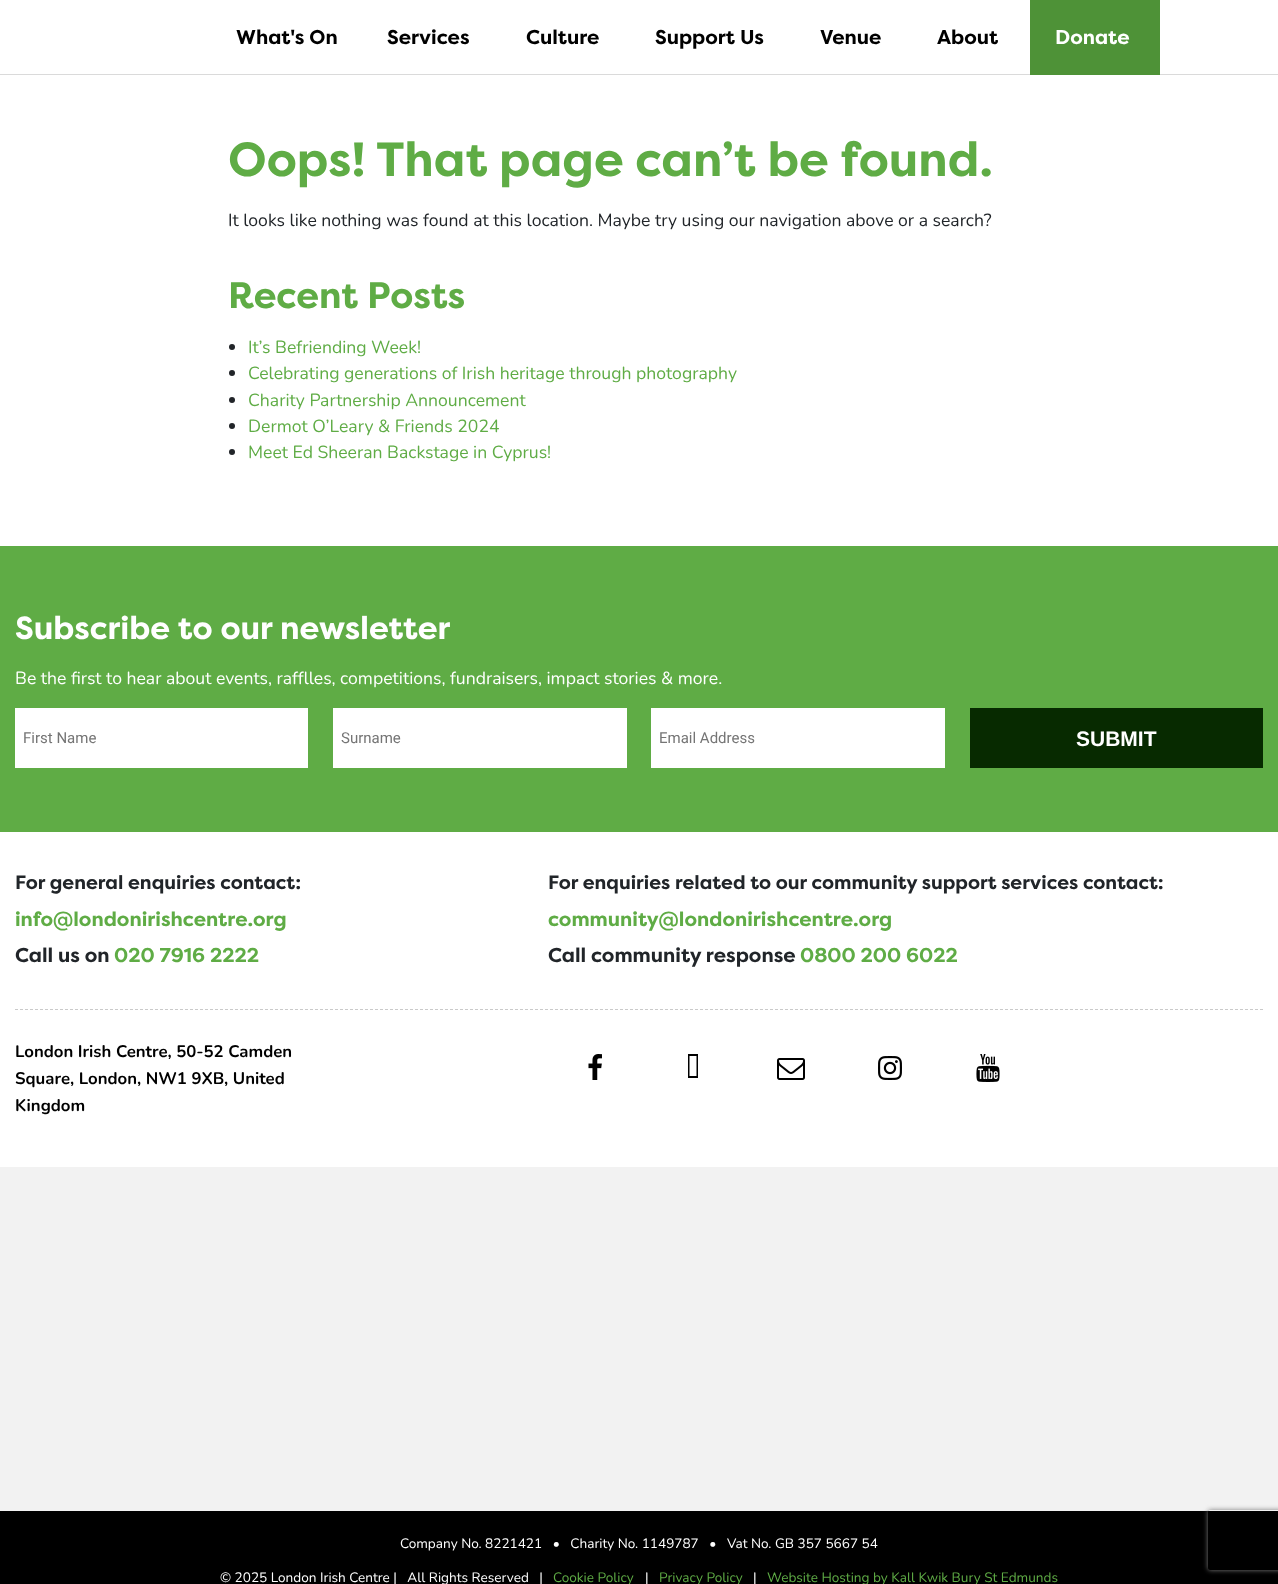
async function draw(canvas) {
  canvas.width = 1278;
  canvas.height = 1584;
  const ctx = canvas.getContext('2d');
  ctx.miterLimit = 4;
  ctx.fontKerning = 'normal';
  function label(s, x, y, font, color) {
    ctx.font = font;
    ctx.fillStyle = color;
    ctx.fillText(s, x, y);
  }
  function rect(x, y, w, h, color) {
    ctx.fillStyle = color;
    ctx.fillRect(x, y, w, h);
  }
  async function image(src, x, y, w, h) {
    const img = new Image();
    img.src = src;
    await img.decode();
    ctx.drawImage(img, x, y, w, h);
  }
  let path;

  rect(0, 0, 1278, 1584, '#fff');
  rect(0, 74, 1278, 1, '#dadada');
  label('What\'s On', 236, 44, 'bold 20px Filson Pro', '#000');
  label('Services', 387, 44, 'bold 20px Filson Pro', '#000');
  label('Culture', 526, 44, 'bold 20px Filson Pro', '#000');
  label('Support Us', 655, 44, 'bold 20px Filson Pro', '#000');
  label('Venue', 820, 44, 'bold 20px Filson Pro', '#000');
  label('About', 937, 44, 'bold 20px Filson Pro', '#000');
  rect(1030, 0, 130, 75, '#4e9237');
  label('Donate', 1055, 44, 'bold 20px Filson Pro', '#fff');
  label('Oops! That page can’t be found.', 228, 176, 'bold 48px Filson Pro', '#5fac45');
  label('It looks like nothing was found at this location. Maybe try using our navigation above or a search?', 228, 226, '17.6px Nunito', '#212529');
  label('Recent Posts', 228, 308, 'bold 36.75px Filson Pro', '#5fac45');
  ctx.fillStyle = '#212529';
  ctx.beginPath();
  ctx.arc(232, 347, 3, 0, 2 * Math.PI);
  ctx.fill();
  label('It’s Befriending Week!', 248, 353, '17.6px Nunito', '#5fac45');
  ctx.fillStyle = '#212529';
  ctx.beginPath();
  ctx.arc(232, 373, 3, 0, 2 * Math.PI);
  ctx.fill();
  label('Celebrating generations of Irish heritage through photography', 248, 379, '17.6px Nunito', '#5fac45');
  ctx.fillStyle = '#212529';
  ctx.beginPath();
  ctx.arc(232, 400, 3, 0, 2 * Math.PI);
  ctx.fill();
  label('Charity Partnership Announcement', 248, 406, '17.6px Nunito', '#5fac45');
  ctx.fillStyle = '#212529';
  ctx.beginPath();
  ctx.arc(232, 426, 3, 0, 2 * Math.PI);
  ctx.fill();
  label('Dermot O’Leary & Friends 2024', 248, 432, '17.6px Nunito', '#5fac45');
  ctx.fillStyle = '#212529';
  ctx.beginPath();
  ctx.arc(232, 452, 3, 0, 2 * Math.PI);
  ctx.fill();
  label('Meet Ed Sheeran Backstage in Cyprus!', 248, 458, '17.6px Nunito', '#5fac45');
  rect(0, 546, 1278, 286, '#5fac45');
  label('Subscribe to our newsletter', 15, 639, 'bold 32px Filson Pro', '#fff');
  label('Be the first to hear about events, rafflles, competitions, fundraisers, impact stories & more.', 15, 684, '17.6px Nunito', '#fff');
  rect(15, 708, 293, 60, '#fff');
  label('First Name', 23, 743, '15px Roboto', '#757575');
  rect(333, 708, 294, 60, '#fff');
  label('Surname', 341, 743, '15px Roboto', '#757575');
  rect(651, 708, 294, 60, '#fff');
  label('Email Address', 659, 743, '15px Roboto', '#757575');
  rect(970, 708, 293, 60, '#072a00');
  label('SUBMIT', 1076, 746, 'bold 21px Liberation Sans', '#fff');
  label('For general enquiries contact:', 15, 889, 'bold 19.2px Filson Pro', '#212529');
  label('info@londonirishcentre.org', 15, 926, 'bold 20px Filson Pro', '#5fac45');
  label('Call us on', 15, 962, 'bold 20px Filson Pro', '#212529');
  label('020 7916 2222', 114, 962, 'bold 20px Filson Pro', '#5fac45');
  label('For enquiries related to our community support services contact:', 548, 889, 'bold 19.2px Filson Pro', '#212529');
  label('community@londonirishcentre.org', 548, 926, 'bold 20px Filson Pro', '#5fac45');
  label('Call community response', 548, 962, 'bold 20px Filson Pro', '#212529');
  label('0800 200 6022', 800, 962, 'bold 20px Filson Pro', '#5fac45');
  path = new Path2D('M15 1009.5H1263');
  ctx.strokeStyle = '#cacaca';
  ctx.setLineDash([3, 2]);
  ctx.stroke(path);
  label('London Irish Centre, 50-52 Camden', 15, 1057, 'bold 16.75px Nunito', '#000');
  label('Square, London, NW1 9XB, United', 15, 1084, 'bold 16.75px Nunito', '#000');
  label('Kingdom', 15, 1111, 'bold 16.75px Nunito', '#000');
  await image('assets/img1.png', 588, 1054, 14, 26);
  path = new Path2D('M689.5 1076H696.5V1056H689.5ZM688 1078V1054H698V1078Z');
  ctx.fill(path);
  await image('assets/img2.png', 777, 1058, 28, 22);
  await image('assets/img3.png', 878, 1056, 24, 24);
  await image('assets/img4.png', 976, 1054, 24, 28);
  rect(0, 1167, 1278, 344, '#f2f2f2');
  rect(0, 1511, 1278, 73, '#000');
  label('Company No. 8221421   •   Charity No. 1149787   •   Vat No. GB 357 5667 54', 400, 1548, '13.6px Nunito', '#fff');
  label('© 2025 London Irish Centre |   All Rights Reserved   |', 220, 1582, '13.6px Nunito', '#fff');
  label('Cookie Policy', 553, 1582, '13.6px Nunito', '#5fac45');
  label('|', 645, 1582, '13.6px Nunito', '#fff');
  label('Privacy Policy', 659, 1582, '13.6px Nunito', '#5fac45');
  label('|', 753, 1582, '13.6px Nunito', '#fff');
  label('Website Hosting by Kall Kwik Bury St Edmunds', 767, 1582, '13.6px Nunito', '#5fac45');
  ctx.save();
  path = new Path2D('M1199 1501H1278V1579H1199ZM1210 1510H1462C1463 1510 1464 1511 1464 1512V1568C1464 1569 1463 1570 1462 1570H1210C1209 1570 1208 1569 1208 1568V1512C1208 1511 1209 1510 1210 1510Z');
  ctx.clip(path, 'evenodd');
  ctx.fillStyle = '#808080';
  ctx.filter = 'blur(2.5px)';
  ctx.beginPath();
  ctx.roundRect(1208, 1510, 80, 60, 2);
  ctx.fill();
  ctx.filter = 'none';
  ctx.restore();
}

draw(document.querySelector('canvas'));
